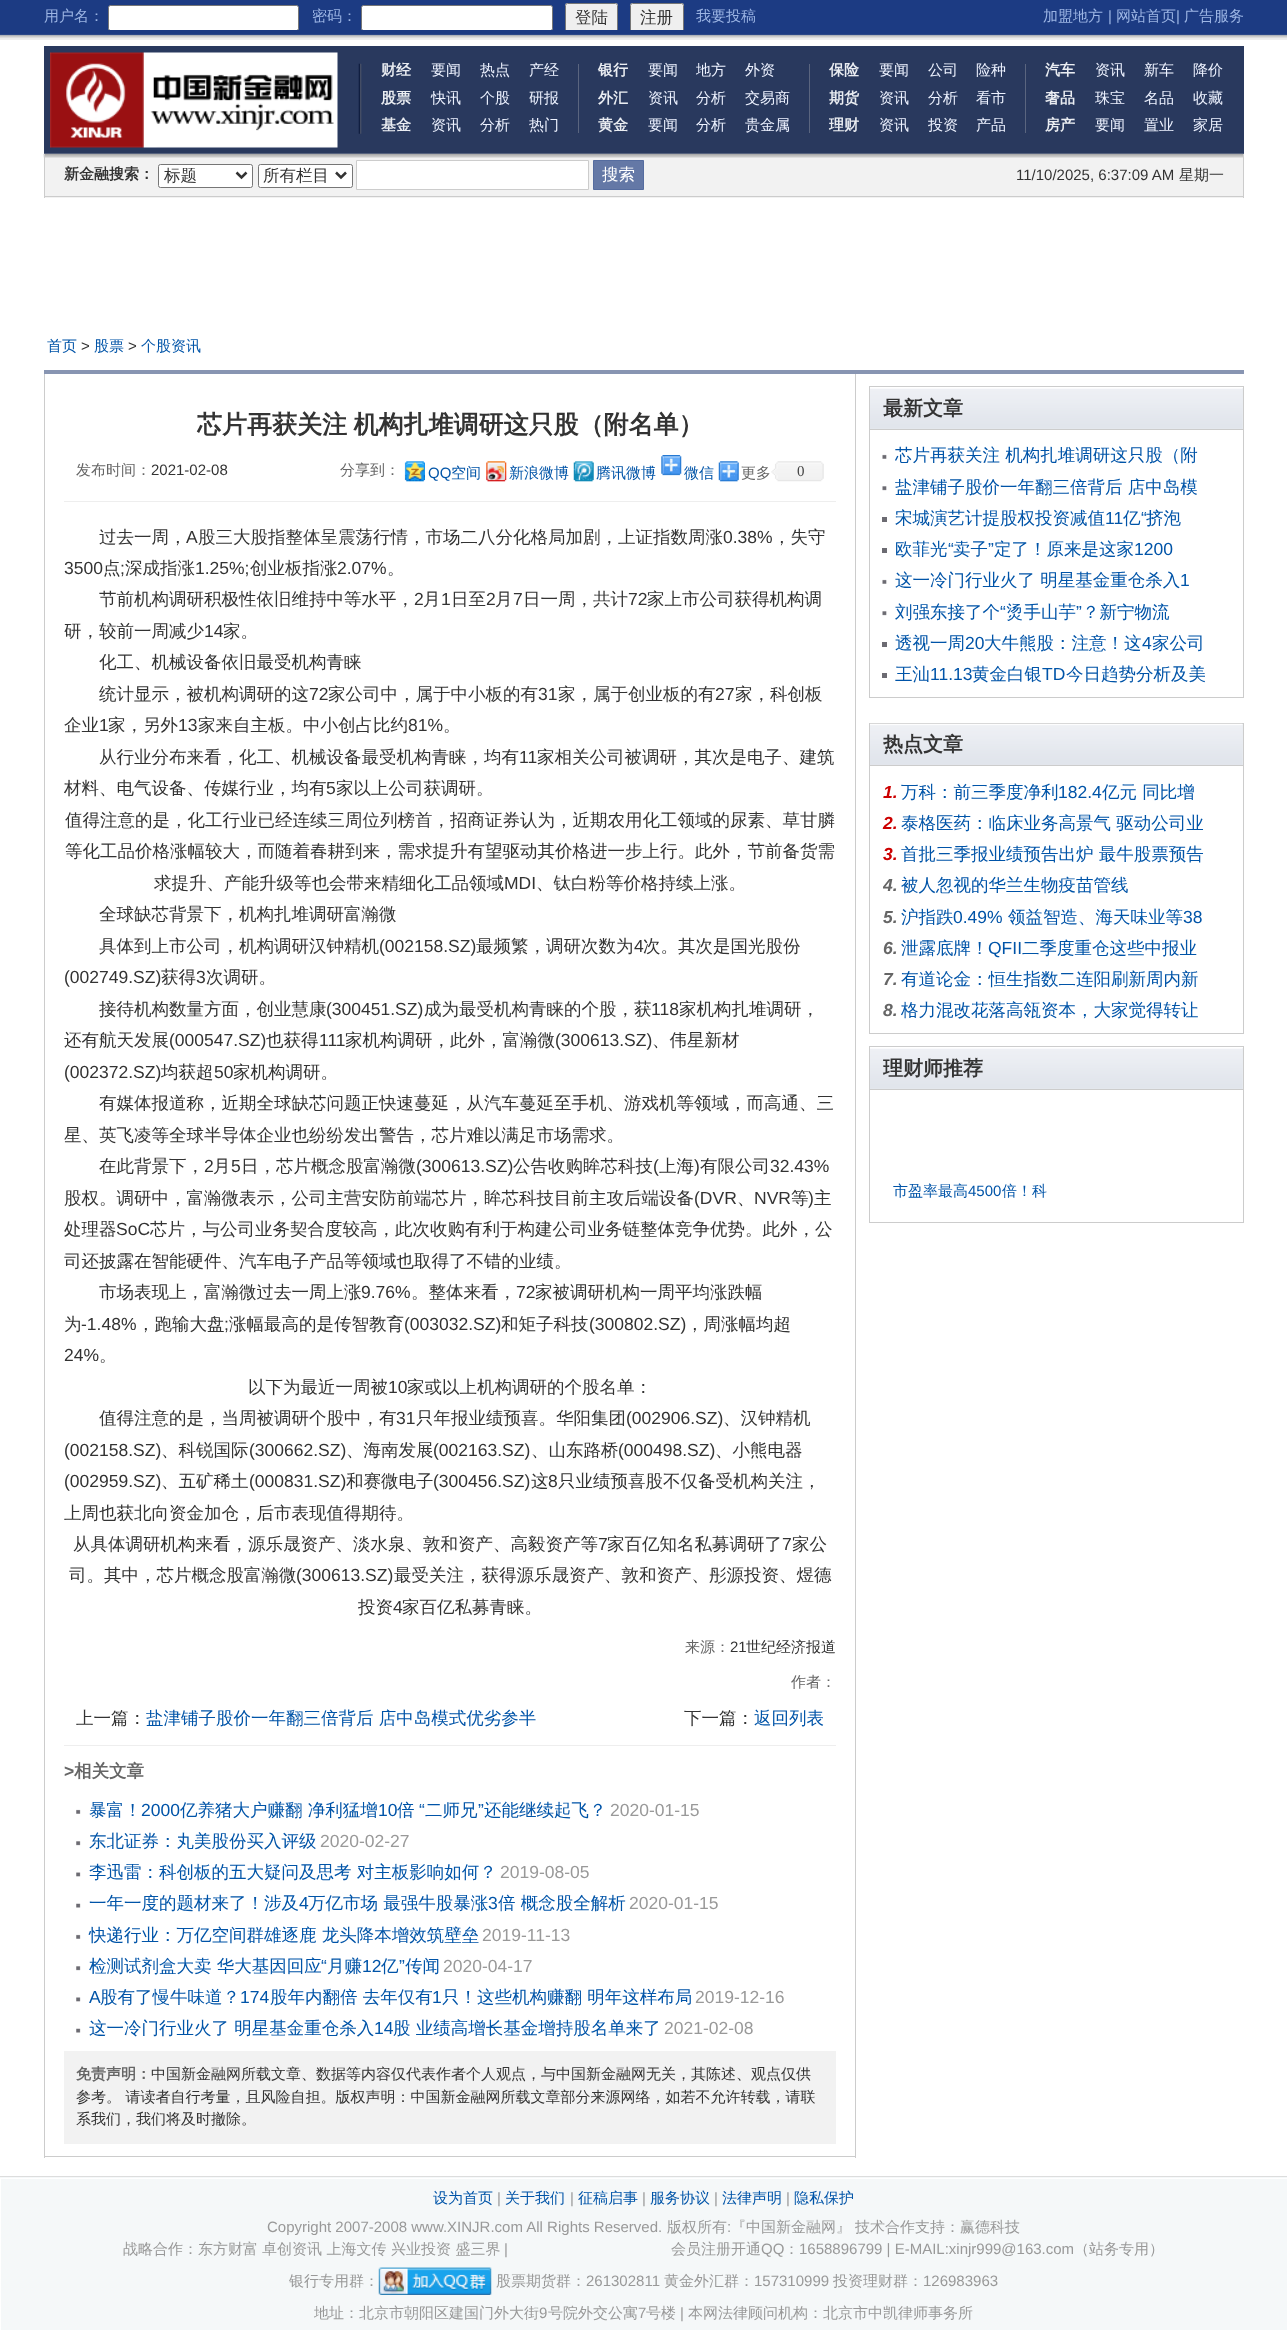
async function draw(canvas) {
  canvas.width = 1287;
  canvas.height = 2337;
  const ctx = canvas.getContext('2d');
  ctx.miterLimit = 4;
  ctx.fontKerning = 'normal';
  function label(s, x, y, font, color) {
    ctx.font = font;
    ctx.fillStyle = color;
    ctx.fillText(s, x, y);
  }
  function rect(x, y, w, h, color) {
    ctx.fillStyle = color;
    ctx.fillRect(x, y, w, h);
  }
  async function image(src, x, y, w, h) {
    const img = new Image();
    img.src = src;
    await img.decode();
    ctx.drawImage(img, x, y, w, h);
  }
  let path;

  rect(0, 0, 1287, 2337, '#fff');
  rect(0, 0, 1287, 36, '#1c3b83');
  await image('assets/img1.png', 0, 34, 1287, 6);
  label('用户名：', 44, 21, '500 15px WenQuanYi Zen Hei', '#9cb5e4');
  ctx.save();
  ctx.beginPath();
  ctx.rect(44, 3, 1200, 27);
  ctx.clip();
  ctx.fillStyle = '#fff';
  ctx.beginPath();
  ctx.roundRect(108.5, 5.5, 190, 25, 2);
  ctx.fill();
  ctx.strokeStyle = '#767676';
  ctx.stroke();
  ctx.restore();
  label('密码：', 312, 21, '500 15px WenQuanYi Zen Hei', '#9cb5e4');
  ctx.save();
  ctx.beginPath();
  ctx.rect(44, 3, 1200, 27);
  ctx.clip();
  ctx.fillStyle = '#fff';
  ctx.beginPath();
  ctx.roundRect(361.5, 5.5, 191, 25, 2);
  ctx.fill();
  ctx.strokeStyle = '#767676';
  ctx.stroke();
  ctx.restore();
  ctx.fillStyle = '#efefef';
  ctx.beginPath();
  ctx.roundRect(565, 3, 53, 27, [2.5, 2.5, 0, 0]);
  ctx.fill();
  ctx.save();
  ctx.beginPath();
  ctx.rect(44, 3, 1200, 27);
  ctx.clip();
  ctx.beginPath();
  ctx.roundRect(565.5, 3.5, 52, 29, 2);
  ctx.strokeStyle = '#767676';
  ctx.stroke();
  ctx.restore();
  label('登陆', 575, 23, '500 16.5px WenQuanYi Zen Hei', '#333');
  ctx.fillStyle = '#efefef';
  ctx.beginPath();
  ctx.roundRect(630, 3, 54, 27, [2.5, 2.5, 0, 0]);
  ctx.fill();
  ctx.save();
  ctx.beginPath();
  ctx.rect(44, 3, 1200, 27);
  ctx.clip();
  ctx.beginPath();
  ctx.roundRect(630.5, 3.5, 53, 29, 2);
  ctx.strokeStyle = '#767676';
  ctx.stroke();
  ctx.restore();
  label('注册', 640, 23, '500 16.5px WenQuanYi Zen Hei', '#333');
  label('我要投稿', 696, 21, '500 15px WenQuanYi Zen Hei', '#9cb5e4');
  label('加盟地方', 1043, 21, '500 15px WenQuanYi Zen Hei', '#9cb5e4');
  label('|', 1108, 21, '15px Liberation Sans', '#9cb5e4');
  label('网站首页', 1116, 21, '500 15px WenQuanYi Zen Hei', '#9cb5e4');
  label('|', 1176, 21, '15px Liberation Sans', '#9cb5e4');
  label('广告服务', 1184, 21, '500 15px WenQuanYi Zen Hei', '#9cb5e4');
  rect(44, 46, 1200, 108, '#29395e');
  await image('assets/img2.png', 50, 52, 288, 96);
  await image('assets/img3.png', 358, 63, 4, 71);
  label('财经', 381, 75, 'bold 15px WenQuanYi Zen Hei', '#eaedf2');
  label('要闻', 431, 75, '500 15px WenQuanYi Zen Hei', '#edf2ff');
  label('热点', 480, 75, '500 15px WenQuanYi Zen Hei', '#edf2ff');
  label('产经', 529, 75, '500 15px WenQuanYi Zen Hei', '#edf2ff');
  label('股票', 381, 103, 'bold 15px WenQuanYi Zen Hei', '#eaedf2');
  label('快讯', 431, 103, '500 15px WenQuanYi Zen Hei', '#edf2ff');
  label('个股', 480, 103, '500 15px WenQuanYi Zen Hei', '#edf2ff');
  label('研报', 529, 103, '500 15px WenQuanYi Zen Hei', '#edf2ff');
  label('基金', 381, 130, 'bold 15px WenQuanYi Zen Hei', '#eaedf2');
  label('资讯', 431, 130, '500 15px WenQuanYi Zen Hei', '#edf2ff');
  label('分析', 480, 130, '500 15px WenQuanYi Zen Hei', '#edf2ff');
  label('热门', 529, 130, '500 15px WenQuanYi Zen Hei', '#edf2ff');
  rect(578, 64, 1, 69, '#5a657f');
  label('银行', 598, 75, 'bold 15px WenQuanYi Zen Hei', '#eaedf2');
  label('要闻', 648, 75, '500 15px WenQuanYi Zen Hei', '#edf2ff');
  label('地方', 696, 75, '500 15px WenQuanYi Zen Hei', '#edf2ff');
  label('外资', 745, 75, '500 15px WenQuanYi Zen Hei', '#edf2ff');
  label('外汇', 598, 103, 'bold 15px WenQuanYi Zen Hei', '#eaedf2');
  label('资讯', 648, 103, '500 15px WenQuanYi Zen Hei', '#edf2ff');
  label('分析', 696, 103, '500 15px WenQuanYi Zen Hei', '#edf2ff');
  label('交易商', 745, 103, '500 15px WenQuanYi Zen Hei', '#edf2ff');
  label('黄金', 598, 130, 'bold 15px WenQuanYi Zen Hei', '#eaedf2');
  label('要闻', 648, 130, '500 15px WenQuanYi Zen Hei', '#edf2ff');
  label('分析', 696, 130, '500 15px WenQuanYi Zen Hei', '#edf2ff');
  label('贵金属', 745, 130, '500 15px WenQuanYi Zen Hei', '#edf2ff');
  rect(809, 64, 1, 69, '#5a657f');
  label('保险', 829, 75, 'bold 15px WenQuanYi Zen Hei', '#eaedf2');
  label('要闻', 879, 75, '500 15px WenQuanYi Zen Hei', '#edf2ff');
  label('公司', 928, 75, '500 15px WenQuanYi Zen Hei', '#edf2ff');
  label('险种', 976, 75, '500 15px WenQuanYi Zen Hei', '#edf2ff');
  label('期货', 829, 103, 'bold 15px WenQuanYi Zen Hei', '#eaedf2');
  label('资讯', 879, 103, '500 15px WenQuanYi Zen Hei', '#edf2ff');
  label('分析', 928, 103, '500 15px WenQuanYi Zen Hei', '#edf2ff');
  label('看市', 976, 103, '500 15px WenQuanYi Zen Hei', '#edf2ff');
  label('理财', 829, 130, 'bold 15px WenQuanYi Zen Hei', '#eaedf2');
  label('资讯', 879, 130, '500 15px WenQuanYi Zen Hei', '#edf2ff');
  label('投资', 928, 130, '500 15px WenQuanYi Zen Hei', '#edf2ff');
  label('产品', 976, 130, '500 15px WenQuanYi Zen Hei', '#edf2ff');
  rect(1025, 64, 1, 69, '#5a657f');
  label('汽车', 1045, 75, 'bold 15px WenQuanYi Zen Hei', '#eaedf2');
  label('资讯', 1095, 75, '500 15px WenQuanYi Zen Hei', '#edf2ff');
  label('新车', 1144, 75, '500 15px WenQuanYi Zen Hei', '#edf2ff');
  label('降价', 1193, 75, '500 15px WenQuanYi Zen Hei', '#edf2ff');
  label('奢品', 1045, 103, 'bold 15px WenQuanYi Zen Hei', '#eaedf2');
  label('珠宝', 1095, 103, '500 15px WenQuanYi Zen Hei', '#edf2ff');
  label('名品', 1144, 103, '500 15px WenQuanYi Zen Hei', '#edf2ff');
  label('收藏', 1193, 103, '500 15px WenQuanYi Zen Hei', '#edf2ff');
  label('房产', 1045, 130, 'bold 15px WenQuanYi Zen Hei', '#eaedf2');
  label('要闻', 1095, 130, '500 15px WenQuanYi Zen Hei', '#edf2ff');
  label('置业', 1144, 130, '500 15px WenQuanYi Zen Hei', '#edf2ff');
  label('家居', 1193, 130, '500 15px WenQuanYi Zen Hei', '#edf2ff');
  rect(45, 157, 1198, 41, '#f2f2f2');
  await image('assets/img4.png', 43, 153, 1201, 5);
  rect(1243, 154, 1, 44, '#ccc');
  rect(44, 196, 1200, 1, '#ccc');
  rect(44, 154, 1, 44, '#ccc');
  label('新金融搜索：', 64, 179, 'bold 15px WenQuanYi Zen Hei', '#333');
  ctx.fillStyle = '#fff';
  ctx.beginPath();
  ctx.roundRect(158.5, 164.5, 94, 23, 2);
  ctx.fill();
  ctx.strokeStyle = '#767676';
  ctx.stroke();
  path = new Path2D('M236.5 172.5L241.5 177.5L246.5 172.5');
  ctx.strokeStyle = '#333';
  ctx.lineWidth = 2.5;
  ctx.stroke(path);
  label('标题', 164, 181, '500 16.5px WenQuanYi Zen Hei', '#333');
  ctx.fillStyle = '#fff';
  ctx.beginPath();
  ctx.roundRect(258.5, 164.5, 94, 23, 2);
  ctx.fill();
  ctx.strokeStyle = '#767676';
  ctx.lineWidth = 1;
  ctx.stroke();
  path = new Path2D('M336 172.5L341 177.5L346 172.5');
  ctx.strokeStyle = '#333';
  ctx.lineWidth = 2.5;
  ctx.stroke(path);
  label('所有栏目', 263, 181, '500 16.5px WenQuanYi Zen Hei', '#333');
  ctx.fillStyle = '#fff';
  ctx.beginPath();
  ctx.rect(356.5, 160.5, 232, 29);
  ctx.fill();
  ctx.strokeStyle = '#ccc';
  ctx.lineWidth = 1;
  ctx.stroke();
  ctx.fillStyle = '#6478a6';
  ctx.beginPath();
  ctx.rect(593.5, 160.5, 50, 29);
  ctx.fill();
  ctx.strokeStyle = '#556c9f';
  ctx.stroke();
  label('搜索', 602, 180, '500 16.5px WenQuanYi Zen Hei', '#fff');
  label('11/10/2025, 6:37:09 AM', 1016, 180, '15px Liberation Sans', '#333');
  label('星期一', 1179, 180, '500 15px WenQuanYi Zen Hei', '#333');
  label('首页', 47, 351, '500 15px WenQuanYi Zen Hei', '#0054a8');
  label('>', 81, 351, '15px Liberation Sans', '#333');
  label('股票', 94, 351, '500 15px WenQuanYi Zen Hei', '#0054a8');
  label('>', 128, 351, '15px Liberation Sans', '#333');
  label('个股资讯', 141, 351, '500 15px WenQuanYi Zen Hei', '#0054a8');
  rect(44, 370, 1200, 4, '#8895b2');
  rect(855, 374, 1, 1784, '#ccc');
  rect(44, 2156, 812, 1, '#ccc');
  rect(44, 374, 1, 1784, '#ccc');
  rect(64, 501, 772, 1, '#eee');
  ctx.wordSpacing = '-1px';
  label('芯片再获关注 机构扎堆调研这只股（附名单）', 197, 433, 'bold 25px WenQuanYi Zen Hei', '#333');
  ctx.wordSpacing = '0px';
  label('发布时间：', 76, 475, '500 15px WenQuanYi Zen Hei', '#666');
  label('2021-02-08', 151, 475, '15px Liberation Sans', '#333');
  label('分享到：', 340, 475, '500 15px WenQuanYi Zen Hei', '#666');
  await image('assets/img5.png', 404, 461, 21, 21);
  label('QQ', 428, 478, '15px Liberation Sans', '#0054a8');
  label('空间', 451, 478, '500 15px WenQuanYi Zen Hei', '#0054a8');
  await image('assets/img6.png', 486, 461, 21, 21);
  label('新浪微博', 509, 478, '500 15px WenQuanYi Zen Hei', '#0054a8');
  await image('assets/img7.png', 573, 461, 21, 21);
  label('腾讯微博', 596, 478, '500 15px WenQuanYi Zen Hei', '#0054a8');
  await image('assets/img8.png', 661, 455, 21, 21);
  label('微信', 684, 478, '500 15px WenQuanYi Zen Hei', '#0054a8');
  await image('assets/img9.png', 718, 461, 21, 21);
  label('更多', 741, 478, '500 15px WenQuanYi Zen Hei', '#666');
  await image('assets/img10.png', 771, 461, 53, 21);
  label('0', 797, 476, '15px Liberation Serif', '#454545');
  label('过去一周，', 99, 543, '500 17.5px WenQuanYi Zen Hei', '#333');
  label('A', 186, 543, '17.5px Liberation Sans', '#333');
  label('股三大股指整体呈震荡行情，市场二八分化格局加剧，上证指数周涨', 198, 543, '500 17.5px WenQuanYi Zen Hei', '#333');
  label('0.38%', 723, 543, '17.5px Liberation Sans', '#333');
  label('，失守', 773, 543, '500 17.5px WenQuanYi Zen Hei', '#333');
  label('3500', 64, 574, '17.5px Liberation Sans', '#333');
  label('点', 103, 574, '500 17.5px WenQuanYi Zen Hei', '#333');
  label(';', 120, 574, '17.5px Liberation Sans', '#333');
  label('深成指涨', 125, 574, '500 17.5px WenQuanYi Zen Hei', '#333');
  label('1.25%;', 195, 574, '17.5px Liberation Sans', '#333');
  label('创业板指涨', 250, 574, '500 17.5px WenQuanYi Zen Hei', '#333');
  label('2.07%', 337, 574, '17.5px Liberation Sans', '#333');
  label('。', 387, 574, '500 17.5px WenQuanYi Zen Hei', '#333');
  label('节前机构调研积极性依旧维持中等水平，', 99, 605, '500 17.5px WenQuanYi Zen Hei', '#333');
  label('2', 414, 605, '17.5px Liberation Sans', '#333');
  label('月', 423, 605, '500 17.5px WenQuanYi Zen Hei', '#333');
  label('1', 441, 605, '17.5px Liberation Sans', '#333');
  label('日至', 451, 605, '500 17.5px WenQuanYi Zen Hei', '#333');
  label('2', 486, 605, '17.5px Liberation Sans', '#333');
  label('月', 495, 605, '500 17.5px WenQuanYi Zen Hei', '#333');
  label('7', 513, 605, '17.5px Liberation Sans', '#333');
  label('日一周，共计', 523, 605, '500 17.5px WenQuanYi Zen Hei', '#333');
  label('72', 628, 605, '17.5px Liberation Sans', '#333');
  label('家上市公司获得机构调', 647, 605, '500 17.5px WenQuanYi Zen Hei', '#333');
  label('研，较前一周减少', 64, 637, '500 17.5px WenQuanYi Zen Hei', '#333');
  label('14', 204, 637, '17.5px Liberation Sans', '#333');
  label('家。', 223, 637, '500 17.5px WenQuanYi Zen Hei', '#333');
  label('化工、机械设备依旧最受机构青睐', 99, 668, '500 17.5px WenQuanYi Zen Hei', '#333');
  label('统计显示，被机构调研的这', 99, 700, '500 17.5px WenQuanYi Zen Hei', '#333');
  label('72', 309, 700, '17.5px Liberation Sans', '#333');
  label('家公司中，属于中小板的有', 328, 700, '500 17.5px WenQuanYi Zen Hei', '#333');
  label('31', 538, 700, '17.5px Liberation Sans', '#333');
  label('家，属于创业板的有', 558, 700, '500 17.5px WenQuanYi Zen Hei', '#333');
  label('27', 715, 700, '17.5px Liberation Sans', '#333');
  label('家，科创板', 735, 700, '500 17.5px WenQuanYi Zen Hei', '#333');
  label('企业', 64, 731, '500 17.5px WenQuanYi Zen Hei', '#333');
  label('1', 99, 731, '17.5px Liberation Sans', '#333');
  label('家，另外', 108, 731, '500 17.5px WenQuanYi Zen Hei', '#333');
  label('13', 178, 731, '17.5px Liberation Sans', '#333');
  label('家来自主板。中小创占比约', 198, 731, '500 17.5px WenQuanYi Zen Hei', '#333');
  label('81%', 408, 731, '17.5px Liberation Sans', '#333');
  label('。', 443, 731, '500 17.5px WenQuanYi Zen Hei', '#333');
  label('从行业分布来看，化工、机械设备最受机构青睐，均有', 99, 763, '500 17.5px WenQuanYi Zen Hei', '#333');
  label('11', 519, 763, '17.5px Liberation Sans', '#333');
  label('家相关公司被调研，其次是电子、建筑', 537, 763, '500 17.5px WenQuanYi Zen Hei', '#333');
  label('材料、电气设备、传媒行业，均有', 64, 794, '500 17.5px WenQuanYi Zen Hei', '#333');
  label('5', 326, 794, '17.5px Liberation Sans', '#333');
  label('家以上公司获调研。', 336, 794, '500 17.5px WenQuanYi Zen Hei', '#333');
  label('值得注意的是，化工行业已经连续三周位列榜首，招商证券认为，近期农用化工领域的尿素、草甘膦', 65, 826, '500 17.5px WenQuanYi Zen Hei', '#333');
  label('等化工品价格涨幅较大，而随着春耕到来，需求提升有望驱动其价格进一步上行。此外，节前备货需', 65, 857, '500 17.5px WenQuanYi Zen Hei', '#333');
  label('求提升、产能升级等也会带来精细化工品领域', 154, 889, '500 17.5px WenQuanYi Zen Hei', '#333');
  label('MDI', 504, 889, '17.5px Liberation Sans', '#333');
  label('、钛白粉等价格持续上涨。', 536, 889, '500 17.5px WenQuanYi Zen Hei', '#333');
  label('全球缺芯背景下，机构扎堆调研富瀚微', 99, 920, '500 17.5px WenQuanYi Zen Hei', '#333');
  label('具体到上市公司，机构调研汉钟精机', 99, 952, '500 17.5px WenQuanYi Zen Hei', '#333');
  label('(002158.SZ)', 379, 952, '17.5px Liberation Sans', '#333');
  label('最频繁，调研次数为', 476, 952, '500 17.5px WenQuanYi Zen Hei', '#333');
  label('4', 634, 952, '17.5px Liberation Sans', '#333');
  label('次。其次是国光股份', 643, 952, '500 17.5px WenQuanYi Zen Hei', '#333');
  label('(002749.SZ)', 64, 983, '17.5px Liberation Sans', '#333');
  label('获得', 161, 983, '500 17.5px WenQuanYi Zen Hei', '#333');
  label('3', 196, 983, '17.5px Liberation Sans', '#333');
  label('次调研。', 206, 983, '500 17.5px WenQuanYi Zen Hei', '#333');
  label('接待机构数量方面，创业慧康', 99, 1015, '500 17.5px WenQuanYi Zen Hei', '#333');
  label('(300451.SZ)', 326, 1015, '17.5px Liberation Sans', '#333');
  label('成为最受机构青睐的个股，获', 424, 1015, '500 17.5px WenQuanYi Zen Hei', '#333');
  label('118', 651, 1015, '17.5px Liberation Sans', '#333');
  label('家机构扎堆调研，', 679, 1015, '500 17.5px WenQuanYi Zen Hei', '#333');
  label('还有航天发展', 64, 1046, '500 17.5px WenQuanYi Zen Hei', '#333');
  label('(000547.SZ)', 169, 1046, '17.5px Liberation Sans', '#333');
  label('也获得', 266, 1046, '500 17.5px WenQuanYi Zen Hei', '#333');
  label('111', 319, 1046, '17.5px Liberation Sans', '#333');
  label('家机构调研，此外，富瀚微', 345, 1046, '500 17.5px WenQuanYi Zen Hei', '#333');
  label('(300613.SZ)', 555, 1046, '17.5px Liberation Sans', '#333');
  label('、伟星新材', 652, 1046, '500 17.5px WenQuanYi Zen Hei', '#333');
  label('(002372.SZ)', 64, 1078, '17.5px Liberation Sans', '#333');
  label('均获超', 161, 1078, '500 17.5px WenQuanYi Zen Hei', '#333');
  label('50', 214, 1078, '17.5px Liberation Sans', '#333');
  label('家机构调研。', 233, 1078, '500 17.5px WenQuanYi Zen Hei', '#333');
  label('有媒体报道称，近期全球缺芯问题正快速蔓延，从汽车蔓延至手机、游戏机等领域，而高通、三', 99, 1109, '500 17.5px WenQuanYi Zen Hei', '#333');
  label('星、英飞凌等全球半导体企业也纷纷发出警告，芯片难以满足市场需求。', 64, 1141, '500 17.5px WenQuanYi Zen Hei', '#333');
  label('在此背景下，', 99, 1172, '500 17.5px WenQuanYi Zen Hei', '#333');
  label('2', 204, 1172, '17.5px Liberation Sans', '#333');
  label('月', 213, 1172, '500 17.5px WenQuanYi Zen Hei', '#333');
  label('5', 231, 1172, '17.5px Liberation Sans', '#333');
  label('日，芯片概念股富瀚微', 241, 1172, '500 17.5px WenQuanYi Zen Hei', '#333');
  label('(300613.SZ)', 416, 1172, '17.5px Liberation Sans', '#333');
  label('公告收购眸芯科技', 513, 1172, '500 17.5px WenQuanYi Zen Hei', '#333');
  label('(', 653, 1172, '17.5px Liberation Sans', '#333');
  label('上海', 659, 1172, '500 17.5px WenQuanYi Zen Hei', '#333');
  label(')', 694, 1172, '17.5px Liberation Sans', '#333');
  label('有限公司', 700, 1172, '500 17.5px WenQuanYi Zen Hei', '#333');
  label('32.43%', 770, 1172, '17.5px Liberation Sans', '#333');
  label('股权。调研中，富瀚微表示，公司主营安防前端芯片，眸芯科技目前主攻后端设备', 64, 1204, '500 17.5px WenQuanYi Zen Hei', '#333');
  label('(DVR', 694, 1204, '17.5px Liberation Sans', '#333');
  label('、', 737, 1204, '500 17.5px WenQuanYi Zen Hei', '#333');
  label('NVR', 754, 1204, '17.5px Liberation Sans', '#333');
  label('等', 791, 1204, '500 17.5px WenQuanYi Zen Hei', '#333');
  label(')', 808, 1204, '17.5px Liberation Sans', '#333');
  label('主', 814, 1204, '500 17.5px WenQuanYi Zen Hei', '#333');
  label('处理器', 64, 1235, '500 17.5px WenQuanYi Zen Hei', '#333');
  label('SoC', 116, 1235, '17.5px Liberation Sans', '#333');
  label('芯片，与公司业务契合度较高，此次收购有利于构建公司业务链整体竞争优势。此外，公', 150, 1235, '500 17.5px WenQuanYi Zen Hei', '#333');
  label('司还披露在智能硬件、汽车电子产品等领域也取得了不错的业绩。', 64, 1267, '500 17.5px WenQuanYi Zen Hei', '#333');
  label('市场表现上，富瀚微过去一周上涨', 99, 1298, '500 17.5px WenQuanYi Zen Hei', '#333');
  label('9.76%', 361, 1298, '17.5px Liberation Sans', '#333');
  label('。整体来看，', 411, 1298, '500 17.5px WenQuanYi Zen Hei', '#333');
  label('72', 516, 1298, '17.5px Liberation Sans', '#333');
  label('家被调研机构一周平均涨跌幅', 535, 1298, '500 17.5px WenQuanYi Zen Hei', '#333');
  label('为', 64, 1330, '500 17.5px WenQuanYi Zen Hei', '#333');
  label('-1.48%', 81, 1330, '17.5px Liberation Sans', '#333');
  label('，跑输大盘', 137, 1330, '500 17.5px WenQuanYi Zen Hei', '#333');
  label(';', 224, 1330, '17.5px Liberation Sans', '#333');
  label('涨幅最高的是传智教育', 229, 1330, '500 17.5px WenQuanYi Zen Hei', '#333');
  label('(003032.SZ)', 404, 1330, '17.5px Liberation Sans', '#333');
  label('和矩子科技', 501, 1330, '500 17.5px WenQuanYi Zen Hei', '#333');
  label('(300802.SZ)', 589, 1330, '17.5px Liberation Sans', '#333');
  label('，周涨幅均超', 686, 1330, '500 17.5px WenQuanYi Zen Hei', '#333');
  label('24%', 64, 1361, '17.5px Liberation Sans', '#333');
  label('。', 99, 1361, '500 17.5px WenQuanYi Zen Hei', '#333');
  label('以下为最近一周被', 248, 1393, '500 17.5px WenQuanYi Zen Hei', '#333');
  label('10', 388, 1393, '17.5px Liberation Sans', '#333');
  label('家或以上机构调研的个股名单：', 407, 1393, '500 17.5px WenQuanYi Zen Hei', '#333');
  label('值得注意的是，当周被调研个股中，有', 99, 1424, '500 17.5px WenQuanYi Zen Hei', '#333');
  label('31', 396, 1424, '17.5px Liberation Sans', '#333');
  label('只年报业绩预喜。华阳集团', 416, 1424, '500 17.5px WenQuanYi Zen Hei', '#333');
  label('(002906.SZ)', 626, 1424, '17.5px Liberation Sans', '#333');
  label('、汉钟精机', 723, 1424, '500 17.5px WenQuanYi Zen Hei', '#333');
  label('(002158.SZ)', 64, 1456, '17.5px Liberation Sans', '#333');
  label('、科锐国际', 161, 1456, '500 17.5px WenQuanYi Zen Hei', '#333');
  label('(300662.SZ)', 249, 1456, '17.5px Liberation Sans', '#333');
  label('、海南发展', 346, 1456, '500 17.5px WenQuanYi Zen Hei', '#333');
  label('(002163.SZ)', 433, 1456, '17.5px Liberation Sans', '#333');
  label('、山东路桥', 531, 1456, '500 17.5px WenQuanYi Zen Hei', '#333');
  label('(000498.SZ)', 618, 1456, '17.5px Liberation Sans', '#333');
  label('、小熊电器', 715, 1456, '500 17.5px WenQuanYi Zen Hei', '#333');
  label('(002959.SZ)', 64, 1487, '17.5px Liberation Sans', '#333');
  label('、五矿稀土', 161, 1487, '500 17.5px WenQuanYi Zen Hei', '#333');
  label('(000831.SZ)', 249, 1487, '17.5px Liberation Sans', '#333');
  label('和赛微电子', 346, 1487, '500 17.5px WenQuanYi Zen Hei', '#333');
  label('(300456.SZ)', 433, 1487, '17.5px Liberation Sans', '#333');
  label('这', 531, 1487, '500 17.5px WenQuanYi Zen Hei', '#333');
  label('8', 548, 1487, '17.5px Liberation Sans', '#333');
  label('只业绩预喜股不仅备受机构关注，', 558, 1487, '500 17.5px WenQuanYi Zen Hei', '#333');
  label('上周也获北向资金加仓，后市表现值得期待。', 64, 1519, '500 17.5px WenQuanYi Zen Hei', '#333');
  label('从具体调研机构来看，源乐晟资产、淡水泉、敦和资产、高毅资产等', 73, 1550, '500 17.5px WenQuanYi Zen Hei', '#333');
  label('7', 598, 1550, '17.5px Liberation Sans', '#333');
  label('家百亿知名私募调研了', 607, 1550, '500 17.5px WenQuanYi Zen Hei', '#333');
  label('7', 782, 1550, '17.5px Liberation Sans', '#333');
  label('家公', 792, 1550, '500 17.5px WenQuanYi Zen Hei', '#333');
  label('司。其中，芯片概念股富瀚微', 69, 1581, '500 17.5px WenQuanYi Zen Hei', '#333');
  label('(300613.SZ)', 296, 1581, '17.5px Liberation Sans', '#333');
  label('最受关注，获得源乐晟资产、敦和资产、彤源投资、煜德', 394, 1581, '500 17.5px WenQuanYi Zen Hei', '#333');
  label('投资', 358, 1613, '500 17.5px WenQuanYi Zen Hei', '#333');
  label('4', 393, 1613, '17.5px Liberation Sans', '#333');
  label('家百亿私募青睐。', 402, 1613, '500 17.5px WenQuanYi Zen Hei', '#333');
  label('来源：', 685, 1652, '500 15px WenQuanYi Zen Hei', '#666');
  label('21', 730, 1652, '15px Liberation Sans', '#333');
  label('世纪经济报道', 746, 1652, '500 15px WenQuanYi Zen Hei', '#333');
  label('作者：', 791, 1687, '500 15px WenQuanYi Zen Hei', '#666');
  label('上一篇：', 76, 1724, '500 17.5px WenQuanYi Zen Hei', '#333');
  label('盐津铺子股价一年翻三倍背后 店中岛模式优劣参半', 146, 1724, '500 17.5px WenQuanYi Zen Hei', '#0054a8');
  label('下一篇：', 684, 1724, '500 17.5px WenQuanYi Zen Hei', '#333');
  label('返回列表', 754, 1724, '500 17.5px WenQuanYi Zen Hei', '#0054a8');
  rect(64, 1745, 772, 1, '#eee');
  label('>', 64, 1777, 'bold 17.5px Liberation Sans', '#666');
  label('相关文章', 74, 1777, 'bold 17.5px WenQuanYi Zen Hei', '#666');
  await image('assets/img11.png', 76, 1809, 5, 5);
  label('暴富！', 89, 1816, '500 17.5px WenQuanYi Zen Hei', '#0054a8');
  label('2000', 141, 1816, '17.5px Liberation Sans', '#0054a8');
  label('亿养猪大户赚翻 净利猛增', 180, 1816, '500 17.5px WenQuanYi Zen Hei', '#0054a8');
  label('10', 378, 1816, '17.5px Liberation Sans', '#0054a8');
  label('倍', 397, 1816, '500 17.5px WenQuanYi Zen Hei', '#0054a8');
  label('“', 419, 1816, '17.5px Liberation Sans', '#0054a8');
  label('二师兄', 425, 1816, '500 17.5px WenQuanYi Zen Hei', '#0054a8');
  label('”', 478, 1816, '17.5px Liberation Sans', '#0054a8');
  label('还能继续起飞？', 484, 1816, '500 17.5px WenQuanYi Zen Hei', '#0054a8');
  label('2020-01-15', 610, 1816, '17.5px Liberation Sans', '#999');
  await image('assets/img12.png', 76, 1841, 5, 5);
  label('东北证券：丸美股份买入评级', 89, 1847, '500 17.5px WenQuanYi Zen Hei', '#0054a8');
  label('2020-02-27', 320, 1847, '17.5px Liberation Sans', '#999');
  await image('assets/img13.png', 76, 1872, 5, 5);
  label('李迅雷：科创板的五大疑问及思考 对主板影响如何？', 89, 1878, '500 17.5px WenQuanYi Zen Hei', '#0054a8');
  label('2019-08-05', 500, 1878, '17.5px Liberation Sans', '#999');
  await image('assets/img14.png', 76, 1903, 5, 5);
  label('一年一度的题材来了！涉及', 89, 1909, '500 17.5px WenQuanYi Zen Hei', '#0054a8');
  label('4', 299, 1909, '17.5px Liberation Sans', '#0054a8');
  label('万亿市场 最强牛股暴涨', 308, 1909, '500 17.5px WenQuanYi Zen Hei', '#0054a8');
  label('3', 488, 1909, '17.5px Liberation Sans', '#0054a8');
  label('倍 概念股全解析', 498, 1909, '500 17.5px WenQuanYi Zen Hei', '#0054a8');
  label('2020-01-15', 629, 1909, '17.5px Liberation Sans', '#999');
  await image('assets/img11.png', 76, 1934, 5, 5);
  label('快递行业：万亿空间群雄逐鹿 龙头降本增效筑壁垒', 89, 1941, '500 17.5px WenQuanYi Zen Hei', '#0054a8');
  label('2019-11-13', 482, 1941, '17.5px Liberation Sans', '#999');
  await image('assets/img12.png', 76, 1966, 5, 5);
  label('检测试剂盒大卖 华大基因回应', 89, 1972, '500 17.5px WenQuanYi Zen Hei', '#0054a8');
  label('“', 321, 1972, '17.5px Liberation Sans', '#0054a8');
  label('月赚', 327, 1972, '500 17.5px WenQuanYi Zen Hei', '#0054a8');
  label('12', 362, 1972, '17.5px Liberation Sans', '#0054a8');
  label('亿', 381, 1972, '500 17.5px WenQuanYi Zen Hei', '#0054a8');
  label('”', 399, 1972, '17.5px Liberation Sans', '#0054a8');
  label('传闻', 405, 1972, '500 17.5px WenQuanYi Zen Hei', '#0054a8');
  label('2020-04-17', 443, 1972, '17.5px Liberation Sans', '#999');
  await image('assets/img15.png', 76, 1997, 5, 5);
  label('A', 89, 2003, '17.5px Liberation Sans', '#0054a8');
  label('股有了慢牛味道？', 100, 2003, '500 17.5px WenQuanYi Zen Hei', '#0054a8');
  label('174', 240, 2003, '17.5px Liberation Sans', '#0054a8');
  label('股年内翻倍 去年仅有', 270, 2003, '500 17.5px WenQuanYi Zen Hei', '#0054a8');
  label('1', 432, 2003, '17.5px Liberation Sans', '#0054a8');
  label('只！这些机构赚翻 明年这样布局', 442, 2003, '500 17.5px WenQuanYi Zen Hei', '#0054a8');
  label('2019-12-16', 695, 2003, '17.5px Liberation Sans', '#999');
  await image('assets/img14.png', 76, 2028, 5, 5);
  label('这一冷门行业火了 明星基金重仓杀入', 89, 2034, '500 17.5px WenQuanYi Zen Hei', '#0054a8');
  label('14', 374, 2034, '17.5px Liberation Sans', '#0054a8');
  label('股 业绩高增长基金增持股名单来了', 393, 2034, '500 17.5px WenQuanYi Zen Hei', '#0054a8');
  label('2021-02-08', 664, 2034, '17.5px Liberation Sans', '#999');
  rect(64, 2051, 772, 93, '#f2f2f2');
  label('免责声明：', 76, 2079, 'bold 15px WenQuanYi Zen Hei', '#666');
  label('中国新金融网所载文章、数据等内容仅代表作者个人观点，与中国新金融网无关，其陈述、观点仅供', 151, 2079, '500 15px WenQuanYi Zen Hei', '#333');
  label('参考。 请读者自行考量，且风险自担。版权声明：中国新金融网所载文章部分来源网络，如若不允许转载，请联', 76, 2102, '500 15px WenQuanYi Zen Hei', '#333');
  label('系我们，我们将及时撤除。', 76, 2124, '500 15px WenQuanYi Zen Hei', '#333');
  ctx.strokeStyle = '#ccc';
  ctx.strokeRect(869.5, 386.5, 374, 311);
  rect(870, 388, 373, 41, '#e9ecf1');
  await image('assets/img16.png', 870, 388, 373, 41);
  rect(870, 429, 373, 1, '#ccc');
  label('最新文章', 883, 415, 'bold 20px WenQuanYi Zen Hei', '#333');
  await image('assets/img17.png', 882, 454, 5, 5);
  label('芯片再获关注 机构扎堆调研这只股（附', 895, 461, '500 17.5px WenQuanYi Zen Hei', '#0054a8');
  await image('assets/img18.png', 882, 486, 5, 5);
  label('盐津铺子股价一年翻三倍背后 店中岛模', 895, 493, '500 17.5px WenQuanYi Zen Hei', '#0054a8');
  rect(882, 517, 5, 5, '#6c6b72');
  label('宋城演艺计提股权投资减值', 895, 524, '500 17.5px WenQuanYi Zen Hei', '#0054a8');
  label('11', 1105, 524, '17.5px Liberation Sans', '#0054a8');
  label('亿', 1123, 524, '500 17.5px WenQuanYi Zen Hei', '#0054a8');
  label('“', 1141, 524, '17.5px Liberation Sans', '#0054a8');
  label('挤泡', 1146, 524, '500 17.5px WenQuanYi Zen Hei', '#0054a8');
  rect(882, 548, 5, 5, '#6c6b72');
  label('欧菲光', 895, 555, '500 17.5px WenQuanYi Zen Hei', '#0054a8');
  label('“', 948, 555, '17.5px Liberation Sans', '#0054a8');
  label('卖子', 953, 555, '500 17.5px WenQuanYi Zen Hei', '#0054a8');
  label('”', 988, 555, '17.5px Liberation Sans', '#0054a8');
  label('定了！原来是这家', 994, 555, '500 17.5px WenQuanYi Zen Hei', '#0054a8');
  label('1200', 1134, 555, '17.5px Liberation Sans', '#0054a8');
  await image('assets/img17.png', 882, 579, 5, 5);
  label('这一冷门行业火了 明星基金重仓杀入', 895, 586, '500 17.5px WenQuanYi Zen Hei', '#0054a8');
  label('1', 1180, 586, '17.5px Liberation Sans', '#0054a8');
  await image('assets/img18.png', 882, 611, 5, 5);
  label('刘强东接了个', 895, 618, '500 17.5px WenQuanYi Zen Hei', '#0054a8');
  label('“', 1000, 618, '17.5px Liberation Sans', '#0054a8');
  label('烫手山芋', 1006, 618, '500 17.5px WenQuanYi Zen Hei', '#0054a8');
  label('”', 1076, 618, '17.5px Liberation Sans', '#0054a8');
  label('？新宁物流', 1082, 618, '500 17.5px WenQuanYi Zen Hei', '#0054a8');
  rect(882, 642, 5, 5, '#6c6b72');
  label('透视一周', 895, 649, '500 17.5px WenQuanYi Zen Hei', '#0054a8');
  label('20', 965, 649, '17.5px Liberation Sans', '#0054a8');
  label('大牛熊股：注意！这', 984, 649, '500 17.5px WenQuanYi Zen Hei', '#0054a8');
  label('4', 1142, 649, '17.5px Liberation Sans', '#0054a8');
  label('家公司', 1152, 649, '500 17.5px WenQuanYi Zen Hei', '#0054a8');
  rect(882, 673, 5, 5, '#6c6b72');
  label('王汕', 895, 680, '500 17.5px WenQuanYi Zen Hei', '#0054a8');
  label('11.13', 930, 680, '17.5px Liberation Sans', '#0054a8');
  label('黄金白银', 972, 680, '500 17.5px WenQuanYi Zen Hei', '#0054a8');
  label('TD', 1042, 680, '17.5px Liberation Sans', '#0054a8');
  label('今日趋势分析及美', 1066, 680, '500 17.5px WenQuanYi Zen Hei', '#0054a8');
  ctx.strokeRect(869.5, 723.5, 374, 310);
  rect(870, 724, 373, 41, '#e9ecf1');
  await image('assets/img19.png', 870, 723, 373, 42);
  rect(870, 765, 373, 1, '#ccc');
  label('热点文章', 883, 751, 'bold 20px WenQuanYi Zen Hei', '#333');
  label('1.', 883, 798, 'italic bold 17.5px Liberation Sans', '#c00');
  label('万科：前三季度净利', 901, 798, '500 17.5px WenQuanYi Zen Hei', '#0054a8');
  label('182.4', 1058, 798, '17.5px Liberation Sans', '#0054a8');
  label('亿元 同比增', 1102, 798, '500 17.5px WenQuanYi Zen Hei', '#0054a8');
  label('2.', 883, 829, 'italic bold 17.5px Liberation Sans', '#c00');
  label('泰格医药：临床业务高景气 驱动公司业', 901, 829, '500 17.5px WenQuanYi Zen Hei', '#0054a8');
  label('3.', 883, 860, 'italic bold 17.5px Liberation Sans', '#c00');
  label('首批三季报业绩预告出炉 最牛股票预告', 901, 860, '500 17.5px WenQuanYi Zen Hei', '#0054a8');
  ctx.save();
  ctx.beginPath();
  ctx.rect(883, 870, 350, 31);
  ctx.clip();
  label('4.', 883, 891, 'italic bold 17.5px Liberation Sans', '#666');
  ctx.restore();
  label('被人忽视的华兰生物疫苗管线', 901, 891, '500 17.5px WenQuanYi Zen Hei', '#0054a8');
  label('5.', 883, 923, 'italic bold 17.5px Liberation Sans', '#666');
  label('沪指跌', 901, 923, '500 17.5px WenQuanYi Zen Hei', '#0054a8');
  label('0.49%', 953, 923, '17.5px Liberation Sans', '#0054a8');
  label('领益智造、海天味业等', 1008, 923, '500 17.5px WenQuanYi Zen Hei', '#0054a8');
  label('38', 1183, 923, '17.5px Liberation Sans', '#0054a8');
  label('6.', 883, 954, 'italic bold 17.5px Liberation Sans', '#666');
  label('泄露底牌！', 901, 954, '500 17.5px WenQuanYi Zen Hei', '#0054a8');
  label('QFII', 988, 954, '17.5px Liberation Sans', '#0054a8');
  label('二季度重仓这些中报业', 1022, 954, '500 17.5px WenQuanYi Zen Hei', '#0054a8');
  label('7.', 883, 985, 'italic bold 17.5px Liberation Sans', '#666');
  label('有道论金：恒生指数二连阳刷新周内新', 901, 985, '500 17.5px WenQuanYi Zen Hei', '#0054a8');
  label('8.', 883, 1016, 'italic bold 17.5px Liberation Sans', '#666');
  label('格力混改花落高瓴资本，大家觉得转让', 901, 1016, '500 17.5px WenQuanYi Zen Hei', '#0054a8');
  ctx.strokeRect(869.5, 1046.5, 374, 176);
  rect(870, 1048, 373, 41, '#e9ecf1');
  await image('assets/img16.png', 870, 1048, 373, 41);
  rect(870, 1089, 373, 1, '#ccc');
  label('理财师推荐', 883, 1075, 'bold 20px WenQuanYi Zen Hei', '#333');
  label('市盈率最高', 893, 1196, '500 15px WenQuanYi Zen Hei', '#0054a8');
  label('4500', 968, 1196, '15px Liberation Sans', '#0054a8');
  label('倍！科', 1002, 1196, '500 15px WenQuanYi Zen Hei', '#0054a8');
  rect(0, 2177, 1287, 153, '#f5f8f9');
  ctx.save();
  ctx.beginPath();
  ctx.rect(0, 2178, 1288, 152);
  ctx.clip();
  ctx.fillStyle = '#fff';
  path = new Path2D('M-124 2054H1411V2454H-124ZM1 2179H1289V2331H1Z');
  ctx.fill(path, 'evenodd');
  ctx.restore();
  rect(0, 2176, 1287, 1, '#ddd');
  label('设为首页', 433, 2203, '500 15px WenQuanYi Zen Hei', '#0054a8');
  label('|', 497, 2203, '15px Liberation Sans', '#999');
  label('关于我们', 505, 2203, '500 15px WenQuanYi Zen Hei', '#0054a8');
  label('|', 570, 2203, '15px Liberation Sans', '#999');
  label('征稿启事', 578, 2203, '500 15px WenQuanYi Zen Hei', '#0054a8');
  label('|', 642, 2203, '15px Liberation Sans', '#999');
  label('服务协议', 650, 2203, '500 15px WenQuanYi Zen Hei', '#0054a8');
  label('|', 714, 2203, '15px Liberation Sans', '#999');
  label('法律声明', 722, 2203, '500 15px WenQuanYi Zen Hei', '#0054a8');
  label('|', 786, 2203, '15px Liberation Sans', '#999');
  label('隐私保护', 794, 2203, '500 15px WenQuanYi Zen Hei', '#0054a8');
  label('Copyright 2007-2008 www.XINJR.com All Rights Reserved.', 267, 2232, '15px Liberation Sans', '#999');
  label('版权所有', 667, 2232, '500 15px WenQuanYi Zen Hei', '#999');
  label(':', 727, 2232, '15px Liberation Sans', '#999');
  label('『中国新金融网』', 731, 2232, '500 15px WenQuanYi Zen Hei', '#999');
  label('技术合作支持：赢德科技', 855, 2232, '500 15px WenQuanYi Zen Hei', '#999');
  label('战略合作：东方财富', 123, 2254, '500 15px WenQuanYi Zen Hei', '#999');
  label('卓创资讯 上海文传 兴业投资 盛三界', 262, 2254, '500 15px WenQuanYi Zen Hei', '#999');
  label('|', 504, 2254, '15px Liberation Sans', '#999');
  label('会员注册开通', 671, 2254, '500 15px WenQuanYi Zen Hei', '#999');
  label('QQ', 761, 2254, '15px Liberation Sans', '#999');
  label('：', 784, 2254, '500 15px WenQuanYi Zen Hei', '#999');
  label('1658896799 | E-MAIL:xinjr999@163.com', 799, 2254, '15px Liberation Sans', '#999');
  label('（站务专用）', 1074, 2254, '500 15px WenQuanYi Zen Hei', '#999');
  label('银行专用群：', 289, 2286, '500 15px WenQuanYi Zen Hei', '#999');
  await image('assets/img20.png', 378, 2267, 114, 28);
  label('股票期货群：', 496, 2286, '500 15px WenQuanYi Zen Hei', '#999');
  label('261302811', 586, 2286, '15px Liberation Sans', '#999');
  label('黄金外汇群：', 664, 2286, '500 15px WenQuanYi Zen Hei', '#999');
  label('157310999', 754, 2286, '15px Liberation Sans', '#999');
  label('投资理财群：', 833, 2286, '500 15px WenQuanYi Zen Hei', '#999');
  label('126983963', 923, 2286, '15px Liberation Sans', '#999');
  label('地址：北京市朝阳区建国门外大街', 314, 2318, '500 15px WenQuanYi Zen Hei', '#999');
  label('9', 539, 2318, '15px Liberation Sans', '#999');
  label('号院外交公寓', 548, 2318, '500 15px WenQuanYi Zen Hei', '#999');
  label('7', 638, 2318, '15px Liberation Sans', '#999');
  label('号楼', 646, 2318, '500 15px WenQuanYi Zen Hei', '#999');
  label('|', 680, 2318, '15px Liberation Sans', '#999');
  label('本网法律顾问机构：北京市中凯律师事务所', 688, 2318, '500 15px WenQuanYi Zen Hei', '#999');
}

draw(document.querySelector('canvas'));
